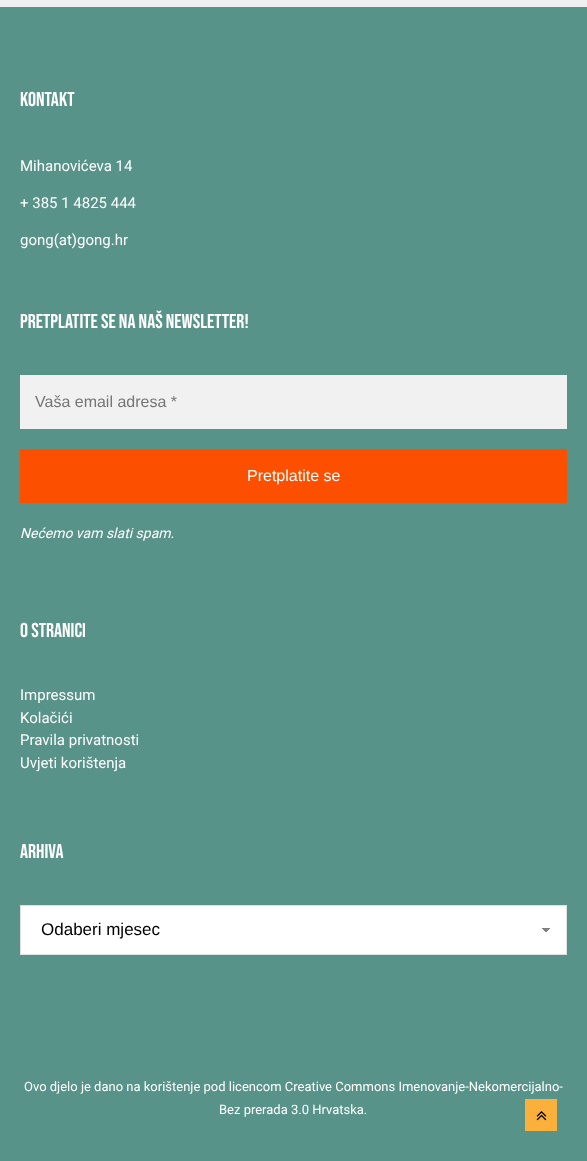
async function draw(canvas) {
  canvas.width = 587;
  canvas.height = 1161;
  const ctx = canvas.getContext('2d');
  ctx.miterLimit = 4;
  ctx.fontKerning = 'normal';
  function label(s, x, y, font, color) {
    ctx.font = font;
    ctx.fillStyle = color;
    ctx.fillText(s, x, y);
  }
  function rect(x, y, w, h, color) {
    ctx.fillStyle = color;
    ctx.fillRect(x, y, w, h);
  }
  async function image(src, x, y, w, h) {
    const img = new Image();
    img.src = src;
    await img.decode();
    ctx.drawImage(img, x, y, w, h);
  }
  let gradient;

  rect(0, 0, 587, 1161, '#f0eff0');
  rect(0, 7, 587, 1154, '#58938a');
  label('Kontakt', 20, 106, '20px Bebas Neue', '#fff');
  label('Mihanovićeva 14', 20, 171, '15px Roboto', '#fff');
  label('+ 385 1 4825 444', 20, 208, '15px Roboto', '#fff');
  label('gong(at)gong.hr', 20, 245, '15px Roboto', '#fff');
  label('Pretplatite se na naš newsletter!', 20, 328, '20px Bebas Neue', '#fff');
  rect(20, 375, 547, 54, '#f1f1f1');
  label('Vaša email adresa *', 35, 407, '16px Liberation Sans', '#757575');
  rect(20, 449, 547, 54, '#fc5000');
  label('Pretplatite se', 247, 481, '16px Liberation Sans', '#fff');
  label('Nećemo vam slati spam.', 20, 538, 'italic 14px Roboto', '#fff');
  label('O stranici', 20, 637, '20px Bebas Neue', '#fff');
  label('Impressum', 20, 700, '15px Roboto', '#fff');
  label('Kolačići', 20, 723, '15px Roboto', '#fff');
  label('Pravila privatnosti', 20, 745, '15px Roboto', '#fff');
  label('Uvjeti korištenja', 20, 768, '15px Roboto', '#fff');
  label('Arhiva', 20, 858, '20px Bebas Neue', '#fff');
  rect(21, 906, 545, 48, '#fff');
  gradient = ctx.createLinearGradient(546, 928, 551, 933);
  gradient.addColorStop(0.5, '#808080');
  gradient.addColorStop(0.5, '#fff');
  ctx.fillStyle = gradient;
  ctx.fillRect(546, 928, 5, 4);
  gradient = ctx.createLinearGradient(541, 933, 546, 928);
  gradient.addColorStop(0.5, '#fff');
  gradient.addColorStop(0.5, '#808080');
  ctx.fillStyle = gradient;
  ctx.fillRect(541, 928, 5, 4);
  ctx.strokeStyle = '#e0e0e1';
  ctx.strokeRect(20.5, 905.5, 546, 49);
  label('Odaberi mjesec', 41, 935, '17px Liberation Sans', '#000');
  label('Ovo djelo je dano na korištenje pod licencom Creative Commons Imenovanje-Nekomercijalno-', 24, 1091, '13px Roboto', '#fff');
  label('Bez prerada 3.0 Hrvatska.', 219, 1114, '13px Roboto', '#fff');
  rect(525, 1099, 32, 32, '#fbb03b');
  await image('assets/img1.png', 536, 1111, 11, 10);
}

draw(document.querySelector('canvas'));
